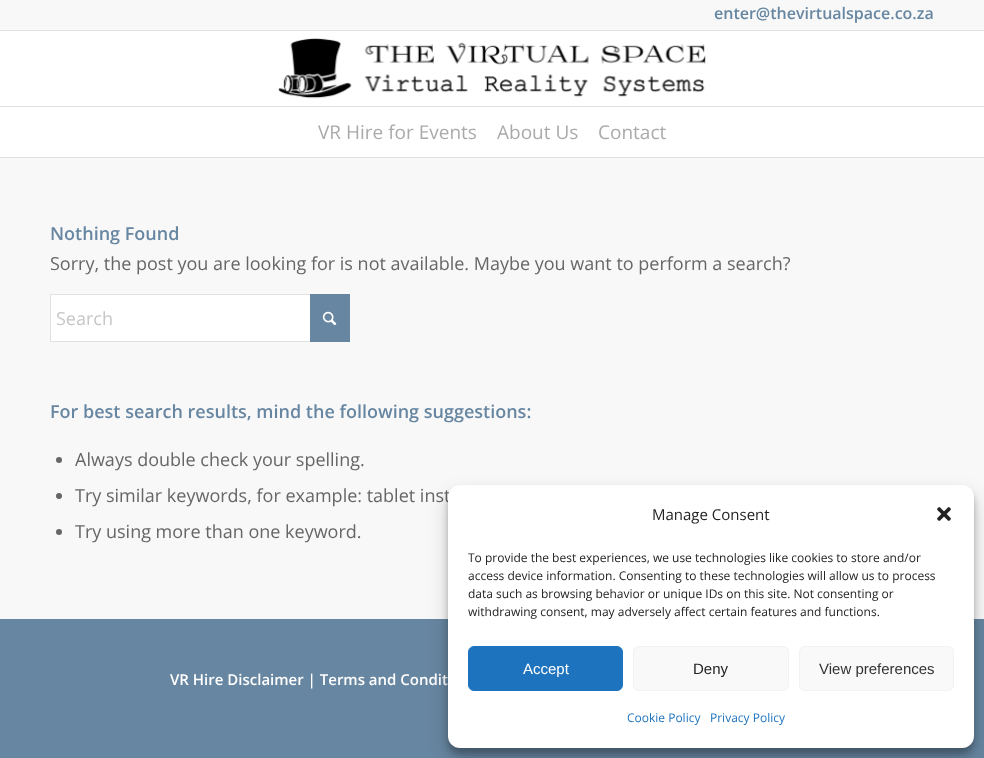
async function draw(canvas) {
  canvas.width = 984;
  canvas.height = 758;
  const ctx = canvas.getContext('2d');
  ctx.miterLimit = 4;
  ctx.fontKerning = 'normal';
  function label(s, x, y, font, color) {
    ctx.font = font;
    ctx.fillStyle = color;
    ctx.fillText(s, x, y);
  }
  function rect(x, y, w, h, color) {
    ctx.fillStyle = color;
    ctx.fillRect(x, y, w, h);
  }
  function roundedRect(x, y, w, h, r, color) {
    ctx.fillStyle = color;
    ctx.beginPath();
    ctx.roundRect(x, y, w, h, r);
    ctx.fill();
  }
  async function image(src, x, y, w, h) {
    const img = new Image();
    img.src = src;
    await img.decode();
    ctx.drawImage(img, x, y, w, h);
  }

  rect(0, 0, 984, 758, '#f8f8f8');
  rect(0, 30, 984, 1, '#e1e1e1');
  label('enter@thevirtualspace.co.za', 714, 19, '600 16px Open Sans', '#6786a1');
  rect(0, 31, 984, 126, '#fff');
  rect(0, 157, 984, 1, '#e1e1e1');
  await image('assets/img1.png', 278, 38, 428, 61);
  rect(0, 106, 984, 1, '#e1e1e1');
  label('VR Hire for Events', 318, 139, '19px Open Sans', '#aaa');
  label('About Us', 497, 139, '19px Open Sans', '#aaa');
  label('Contact', 598, 139, '19px Open Sans', '#aaa');
  label('Nothing Found', 50, 240, '600 18px Open Sans', '#6786a1');
  label('Sorry, the post you are looking for is not available. Maybe you want to perform a search?', 50, 270, '18px Open Sans', '#666');
  rect(51, 295, 259, 46, '#fff');
  ctx.strokeStyle = '#e1e1e1';
  ctx.strokeRect(50.5, 294.5, 299, 47);
  label('Search', 56, 325, '18px Open Sans', '#c6c6c6');
  rect(310, 294, 40, 48, '#6786a1');
  await image('assets/img2.png', 322, 311, 15, 15);
  label('For best search results, mind the following suggestions:', 50, 418, '600 18px Open Sans', '#6786a1');
  ctx.fillStyle = '#666';
  ctx.beginPath();
  ctx.arc(59, 460, 3, 0, 2 * Math.PI);
  ctx.fill();
  label('Always double check your spelling.', 75, 466, '18px Open Sans', '#666');
  ctx.beginPath();
  ctx.arc(59, 496, 3, 0, 2 * Math.PI);
  ctx.fill();
  label('Try similar keywords, for example: tablet inst', 75, 502, '18px Open Sans', '#666');
  ctx.beginPath();
  ctx.arc(59, 532, 3, 0, 2 * Math.PI);
  ctx.fill();
  label('Try using more than one keyword.', 75, 538, '18px Open Sans', '#666');
  rect(0, 619, 984, 139, '#6786a1');
  label('VR Hire Disclaimer | Terms and Condit', 170, 685, '600 15px Open Sans', '#fff');
  ctx.fillStyle = '#0000003b';
  ctx.filter = 'blur(3px)';
  ctx.beginPath();
  ctx.roundRect(448, 491, 526, 263, 12);
  ctx.fill();
  ctx.filter = 'none';
  ctx.fillStyle = '#00000030';
  ctx.filter = 'blur(10px)';
  ctx.beginPath();
  ctx.roundRect(448, 495, 526, 263, 12);
  ctx.fill();
  ctx.filter = 'none';
  roundedRect(448, 485, 526, 263, 12, '#fff');
  label('Manage Consent', 652, 520, '15px Open Sans', '#222');
  await image('assets/img3.png', 937, 507, 14, 14);
  label('To provide the best experiences, we use technologies like cookies to store and/or', 468, 562, '12px Open Sans', '#222');
  label('access device information. Consenting to these technologies will allow us to process', 468, 580, '12px Open Sans', '#222');
  label('data such as browsing behavior or unique IDs on this site. Not consenting or', 468, 598, '12px Open Sans', '#222');
  label('withdrawing consent, may adversely affect certain features and functions.', 468, 616, '12px Open Sans', '#222');
  ctx.fillStyle = '#1e73be';
  ctx.beginPath();
  ctx.roundRect(468.5, 646.5, 154, 44, 5.5);
  ctx.fill();
  ctx.strokeStyle = '#1e73be';
  ctx.stroke();
  label('Accept', 523, 674, '15px Liberation Sans', '#fff');
  ctx.fillStyle = '#f9f9f9';
  ctx.beginPath();
  ctx.roundRect(633.5, 646.5, 155, 44, 5.5);
  ctx.fill();
  ctx.strokeStyle = '#f2f2f2';
  ctx.stroke();
  label('Deny', 693, 674, '15px Liberation Sans', '#222');
  ctx.fillStyle = '#f9f9f9';
  ctx.beginPath();
  ctx.roundRect(799.5, 646.5, 154, 44, 5.5);
  ctx.fill();
  ctx.stroke();
  label('View preferences', 819, 674, '15px Liberation Sans', '#333');
  label('Cookie Policy', 627, 722, '12px Open Sans', '#1e73be');
  label('Privacy Policy', 710, 722, '12px Open Sans', '#1e73be');
}

draw(document.querySelector('canvas'));
